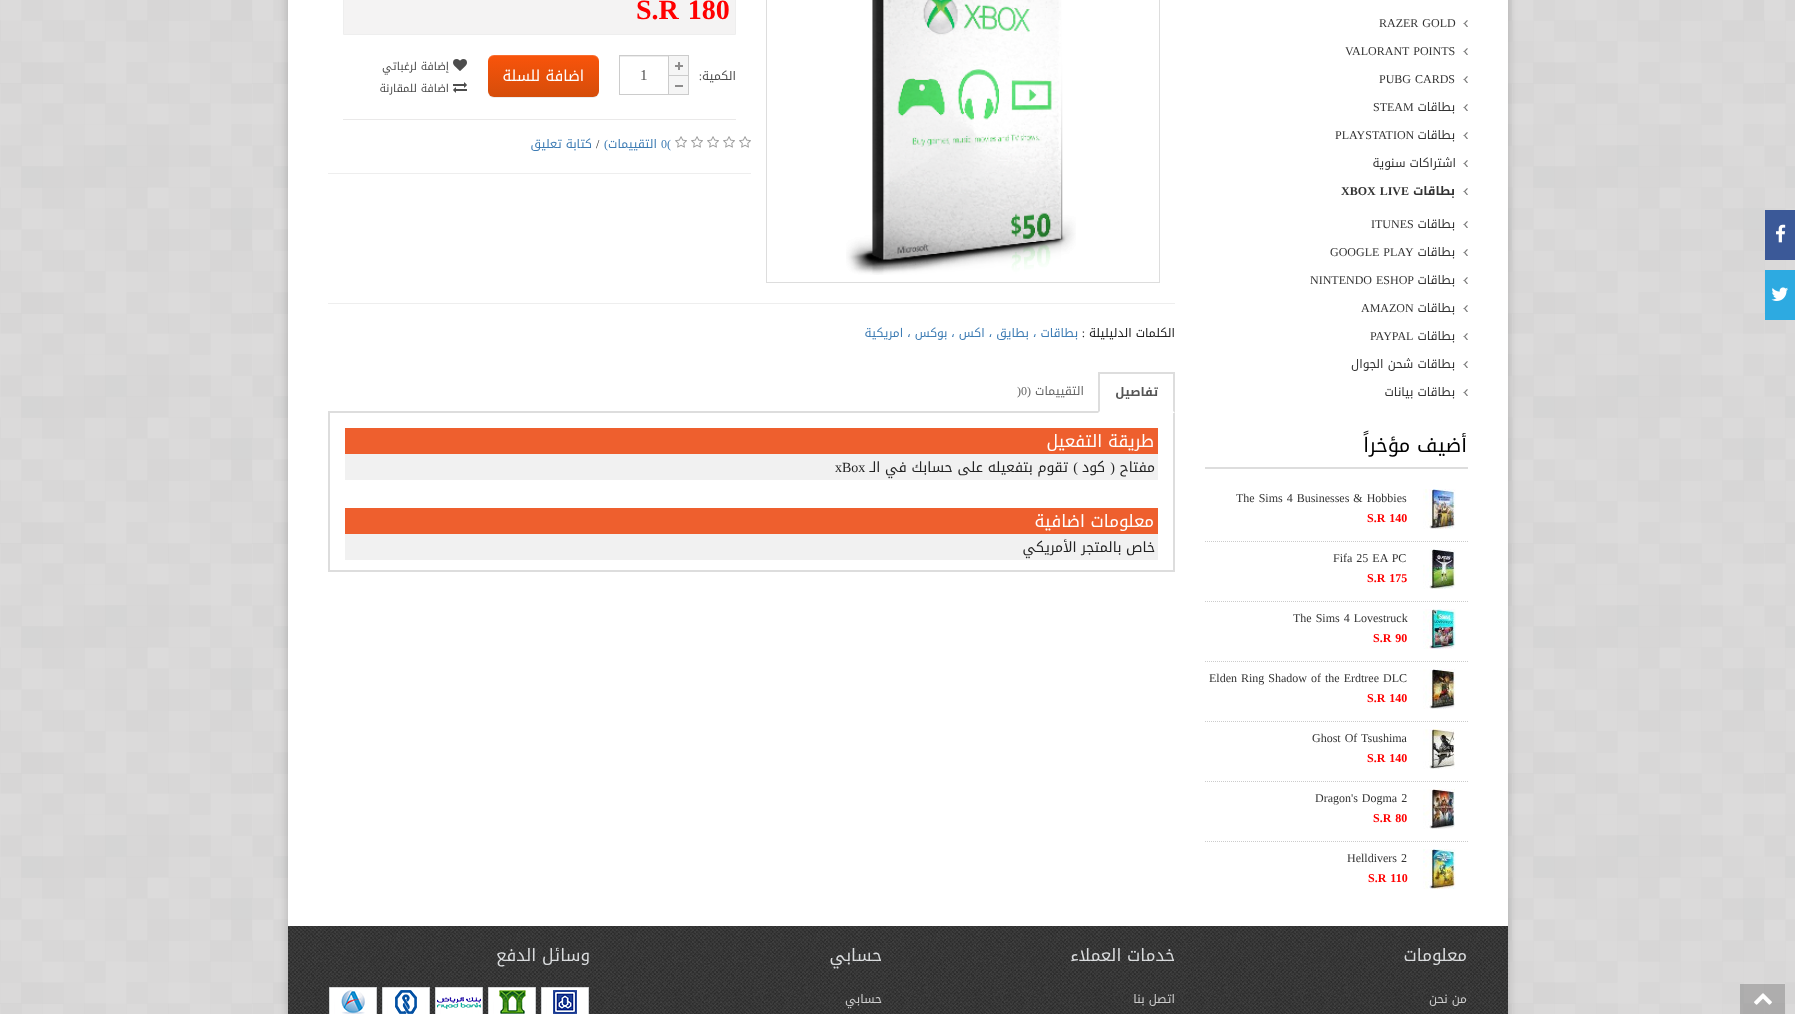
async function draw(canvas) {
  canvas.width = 1795;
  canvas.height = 1014;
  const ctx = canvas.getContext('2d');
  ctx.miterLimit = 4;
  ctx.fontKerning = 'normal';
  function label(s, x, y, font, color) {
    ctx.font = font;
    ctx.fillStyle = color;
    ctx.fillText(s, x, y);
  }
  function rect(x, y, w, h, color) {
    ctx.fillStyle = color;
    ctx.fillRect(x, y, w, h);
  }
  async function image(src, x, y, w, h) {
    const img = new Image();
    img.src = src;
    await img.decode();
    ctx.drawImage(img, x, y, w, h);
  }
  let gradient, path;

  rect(0, 0, 1795, 1014, '#dcdbdb');
  await image('assets/img1.png', 0, 0, 1795, 1014);
  ctx.fillStyle = '#00000033';
  ctx.filter = 'blur(5px)';
  ctx.beginPath();
  ctx.rect(288, -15, 1220, 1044);
  ctx.fill();
  ctx.filter = 'none';
  rect(288, 0, 1220, 926, '#fff');
  rect(1765, 210, 30, 50, '#3b5998');
  await image('assets/img2.png', 1776, 224, 10, 19);
  await image('assets/img3.png', 1463, 20, 5, 7);
  ctx.wordSpacing = '1px';
  label('RAZER GOLD', 1379, 27, '12px Liberation Serif', '#333');
  await image('assets/img3.png', 1463, 48, 5, 7);
  label('VALORANT POINTS', 1345, 55, '12px Liberation Serif', '#333');
  await image('assets/img3.png', 1463, 76, 5, 7);
  label('PUBG CARDS', 1379, 83, '12px Liberation Serif', '#333');
  await image('assets/img3.png', 1463, 104, 5, 7);
  ctx.wordSpacing = '0px';
  ctx.direction = 'rtl';
  label('بطاقات', 1455, 111, '12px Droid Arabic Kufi', '#333');
  ctx.direction = 'ltr';
  label('STEAM', 1373, 111, '12px Liberation Serif', '#333');
  await image('assets/img3.png', 1463, 132, 5, 7);
  ctx.direction = 'rtl';
  label('بطاقات', 1455, 139, '12px Droid Arabic Kufi', '#333');
  ctx.direction = 'ltr';
  label('PLAYSTATION', 1335, 139, '12px Liberation Serif', '#333');
  await image('assets/img3.png', 1463, 160, 5, 7);
  ctx.direction = 'rtl';
  label('اشتراكات سنوية', 1456, 167, '12px Droid Arabic Kufi', '#333');
  await image('assets/img3.png', 1463, 188, 5, 7);
  label('بطاقات', 1455, 195, 'bold 12px Droid Arabic Kufi', '#333');
  ctx.wordSpacing = '1px';
  ctx.direction = 'ltr';
  label('XBOX LIVE', 1341, 195, 'bold 12px Liberation Serif', '#333');
  await image('assets/img3.png', 1463, 221, 5, 7);
  ctx.wordSpacing = '0px';
  ctx.direction = 'rtl';
  label('بطاقات', 1455, 228, '12px Droid Arabic Kufi', '#333');
  ctx.direction = 'ltr';
  label('ITUNES', 1371, 228, '12px Liberation Serif', '#333');
  await image('assets/img3.png', 1463, 249, 5, 7);
  ctx.direction = 'rtl';
  label('بطاقات', 1455, 256, '12px Droid Arabic Kufi', '#333');
  ctx.wordSpacing = '1px';
  ctx.direction = 'ltr';
  label('GOOGLE PLAY', 1330, 256, '12px Liberation Serif', '#333');
  await image('assets/img3.png', 1463, 277, 5, 7);
  ctx.wordSpacing = '0px';
  ctx.direction = 'rtl';
  label('بطاقات', 1455, 284, '12px Droid Arabic Kufi', '#333');
  ctx.wordSpacing = '1px';
  ctx.direction = 'ltr';
  label('NINTENDO ESHOP', 1310, 284, '12px Liberation Serif', '#333');
  await image('assets/img3.png', 1463, 305, 5, 7);
  ctx.wordSpacing = '0px';
  ctx.direction = 'rtl';
  label('بطاقات', 1455, 312, '12px Droid Arabic Kufi', '#333');
  ctx.direction = 'ltr';
  label('AMAZON', 1361, 312, '12px Liberation Serif', '#333');
  await image('assets/img3.png', 1463, 333, 5, 7);
  ctx.direction = 'rtl';
  label('بطاقات', 1455, 340, '12px Droid Arabic Kufi', '#333');
  ctx.direction = 'ltr';
  label('PAYPAL', 1370, 340, '12px Liberation Serif', '#333');
  await image('assets/img3.png', 1463, 361, 5, 7);
  ctx.direction = 'rtl';
  label('بطاقات شحن الجوال', 1455, 368, '12px Droid Arabic Kufi', '#333');
  await image('assets/img3.png', 1463, 389, 5, 7);
  label('بطاقات بيانات', 1455, 396, '12px Droid Arabic Kufi', '#333');
  rect(1205, 467, 263, 2, '#ddd');
  label('أضيف مؤخراً', 1467, 452, '20px Droid Arabic Kufi', '#000');
  await image('assets/img4.png', 1423, 489, 33, 40);
  ctx.wordSpacing = '1px';
  ctx.direction = 'ltr';
  label('The Sims 4 Businesses & Hobbies', 1236, 502, '12px Liberation Serif', '#333');
  label('S.R 140', 1367, 522, 'bold 12px Liberation Serif', '#f00');
  path = new Path2D('M1205 541.5H1468');
  ctx.strokeStyle = '#ccc';
  ctx.setLineDash([1, 1]);
  ctx.stroke(path);
  await image('assets/img5.png', 1423, 549, 33, 40);
  label('Fifa 25 EA PC', 1333, 562, '12px Liberation Serif', '#333');
  label('S.R 175', 1367, 582, 'bold 12px Liberation Serif', '#f00');
  path = new Path2D('M1205 601.5H1468');
  ctx.stroke(path);
  await image('assets/img6.png', 1423, 609, 33, 40);
  label('The Sims 4 Lovestruck', 1293, 622, '12px Liberation Serif', '#333');
  label('S.R 90', 1373, 642, 'bold 12px Liberation Serif', '#f00');
  path = new Path2D('M1205 661.5H1468');
  ctx.stroke(path);
  await image('assets/img7.png', 1423, 669, 33, 40);
  label('Elden Ring Shadow of the Erdtree DLC', 1209, 682, '12px Liberation Serif', '#333');
  label('S.R 140', 1367, 702, 'bold 12px Liberation Serif', '#f00');
  path = new Path2D('M1205 721.5H1468');
  ctx.stroke(path);
  await image('assets/img8.png', 1423, 729, 32, 40);
  label('Ghost Of Tsushima', 1312, 742, '12px Liberation Serif', '#333');
  label('S.R 140', 1367, 762, 'bold 12px Liberation Serif', '#f00');
  path = new Path2D('M1205 781.5H1468');
  ctx.stroke(path);
  await image('assets/img9.png', 1423, 789, 32, 40);
  label('Dragon\'s Dogma 2', 1315, 802, '12px Liberation Serif', '#333');
  label('S.R 80', 1373, 822, 'bold 12px Liberation Serif', '#f00');
  path = new Path2D('M1205 841.5H1468');
  ctx.stroke(path);
  await image('assets/img10.png', 1423, 849, 33, 40);
  label('Helldivers 2', 1347, 862, '12px Liberation Serif', '#333');
  label('S.R 110', 1368, 882, 'bold 12px Liberation Serif', '#f00');
  ctx.strokeStyle = '#ddd';
  ctx.setLineDash([]);
  ctx.strokeRect(766.5, -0.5, 393, 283);
  await image('assets/img11.png', 846, 0, 230, 275);
  ctx.fillStyle = '#f4f3f3';
  ctx.beginPath();
  ctx.rect(343.5, -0.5, 392, 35);
  ctx.fill();
  ctx.strokeStyle = '#eee';
  ctx.stroke();
  ctx.wordSpacing = '2px';
  label('S.R 180', 636, 19, 'bold 28px Liberation Serif', '#f00');
  rect(343, 119, 393, 1, '#eae9e9');
  ctx.wordSpacing = '0px';
  ctx.direction = 'rtl';
  label('الكمية', 736, 80, '12px Droid Arabic Kufi', '#4d4d4d');
  label(':', 702, 80, '12px Liberation Serif', '#4d4d4d');
  rect(669, 56, 19, 19, '#f5f5f5');
  await image('assets/img12.png', 675, 62, 8, 8);
  rect(669, 55, 20, 1, '#ccc');
  rect(688, 55, 1, 20, '#ccc');
  rect(620, 56, 48, 1, '#ececec');
  ctx.strokeStyle = '#ccc';
  ctx.strokeRect(619.5, 55.5, 49, 39);
  ctx.direction = 'ltr';
  label('1', 640, 80, '15px Liberation Serif', '#555');
  rect(669, 76, 19, 18, '#f5f5f5');
  rect(675, 85, 8, 2, '#8d8c8c');
  rect(669, 75, 20, 1, '#ccc');
  rect(688, 75, 1, 20, '#ccc');
  rect(669, 94, 20, 1, '#ccc');
  ctx.fillStyle = '#00000012';
  ctx.filter = 'blur(0.5px)';
  ctx.beginPath();
  ctx.roundRect(488, 56, 111, 42, 6);
  ctx.fill();
  ctx.filter = 'none';
  gradient = ctx.createLinearGradient(544, 55, 544, 97);
  gradient.addColorStop(0, '#f9540b');
  gradient.addColorStop(1, '#d54d0a');
  ctx.fillStyle = gradient;
  ctx.beginPath();
  ctx.roundRect(488, 55, 111, 42, 6);
  ctx.fill();
  ctx.save();
  ctx.beginPath();
  ctx.rect(343, 55, 393, 64);
  ctx.clip();
  ctx.fillStyle = '#ffffff26';
  path = new Path2D('M494 56H593C596 56 599 59 599 62C599 51 583 55 576 55H510C504 55 488 51 488 62C488 59 491 56 494 56Z');
  ctx.fill(path);
  ctx.restore();
  ctx.direction = 'rtl';
  label('اضافة للسلة', 584, 81, '15px Droid Arabic Kufi', '#fff');
  await image('assets/img13.png', 453, 59, 14, 12);
  label('إضافة لرغباتي', 449, 70, '11px Droid Arabic Kufi', '#4d4d4d');
  await image('assets/img14.png', 453, 82, 14, 11);
  label('اضافة للمقارنة', 449, 92, '11px Droid Arabic Kufi', '#4d4d4d');
  await image('assets/img15.png', 739, 136, 12, 12);
  await image('assets/img15.png', 723, 136, 12, 12);
  await image('assets/img15.png', 707, 136, 12, 12);
  await image('assets/img15.png', 691, 136, 12, 12);
  await image('assets/img15.png', 675, 136, 12, 12);
  ctx.direction = 'ltr';
  label('0(', 661, 148, '12px Liberation Serif', '#3e7cb4');
  ctx.direction = 'rtl';
  label('التقييمات', 657, 148, '12px Droid Arabic Kufi', '#3e7cb4');
  label(')', 608, 148, '12px Liberation Serif', '#3e7cb4');
  ctx.direction = 'ltr';
  label('/', 596, 148, '12px Liberation Serif', '#222');
  ctx.direction = 'rtl';
  label('كتابة تعليق', 592, 148, '12px Droid Arabic Kufi', '#3e7cb4');
  rect(328, 173, 423, 1, '#eee');
  rect(328, 303, 847, 1, '#eee');
  label('الكلمات الدليليلة', 1175, 337, '12px Droid Arabic Kufi', '#222');
  label(':', 1085, 337, '12px Liberation Serif', '#222');
  label('بطاقات ، بطايق ، اكس ، بوكس ، امريكية', 1078, 337, '12px Droid Arabic Kufi', '#3e7cb4');
  rect(328, 411, 770, 2, '#ddd');
  rect(1098, 372, 77, 2, '#ddd');
  path = new Path2D('M1175 372V413L1173 411V374Z');
  ctx.fill(path);
  path = new Path2D('M1098 413V372L1100 374V411Z');
  ctx.fill(path);
  label('تفاصيل', 1158, 396, 'bold 12px Droid Arabic Kufi', '#555');
  label('التقييمات', 1084, 395, '12px Droid Arabic Kufi', '#666');
  label('(', 1031, 395, '12px Liberation Serif', '#666');
  ctx.direction = 'ltr';
  label(')0', 1017, 395, '12px Liberation Serif', '#666');
  rect(1173, 413, 2, 159, '#ddd');
  rect(328, 570, 847, 2, '#ddd');
  rect(328, 413, 2, 159, '#ddd');
  rect(345, 428, 813, 26, '#ee5f2e');
  ctx.direction = 'rtl';
  label('طريقة التفعيل', 1154, 447, '17px Droid Arabic Kufi', '#fff');
  rect(345, 454, 813, 26, '#f1f1f1');
  label('مفتاح', 1155, 472, '14px Droid Arabic Kufi', '#222');
  label('(', 1115, 472, '14px Liberation Serif', '#222');
  label('كود', 1105, 472, '14px Droid Arabic Kufi', '#222');
  label(')', 1078, 472, '14px Liberation Serif', '#222');
  label('تقوم بتفعيله على حسابك في الـ', 1068, 472, '14px Droid Arabic Kufi', '#222');
  ctx.direction = 'ltr';
  label('xBox', 835, 472, '14px Liberation Serif', '#222');
  rect(345, 508, 813, 26, '#ee5f2e');
  ctx.direction = 'rtl';
  label('معلومات اضافية', 1154, 527, '17px Droid Arabic Kufi', '#fff');
  rect(345, 534, 813, 26, '#f1f1f1');
  label('خاص بالمتجر الأمريكي', 1155, 552, '14px Droid Arabic Kufi', '#222');
  rect(1765, 270, 30, 50, '#2daae1');
  await image('assets/img16.png', 1771, 287, 17, 14);
  rect(1740, 984, 45, 30, '#00000033');
  await image('assets/img17.png', 1754, 993, 18, 12);
  await image('assets/img18.png', 288, 926, 1220, 88);
  label('معلومات', 1467, 961, '17px Droid Arabic Kufi', '#d9dbdd');
  label('من نحن', 1467, 1003, '12px Droid Arabic Kufi', '#ccc');
  label('خدمات العملاء', 1175, 961, '17px Droid Arabic Kufi', '#d9dbdd');
  label('اتصل بنا', 1175, 1003, '12px Droid Arabic Kufi', '#ccc');
  label('حسابي', 882, 961, '17px Droid Arabic Kufi', '#d9dbdd');
  label('حسابي', 882, 1003, '12px Droid Arabic Kufi', '#ccc');
  label('وسائل الدفع', 590, 961, '17px Droid Arabic Kufi', '#d9dbdd');
  await image('assets/img19.png', 541, 987, 48, 27);
  await image('assets/img20.png', 488, 987, 48, 27);
  await image('assets/img21.png', 435, 987, 48, 27);
  await image('assets/img22.png', 382, 987, 48, 27);
  await image('assets/img23.png', 329, 987, 48, 27);
}

draw(document.querySelector('canvas'));
